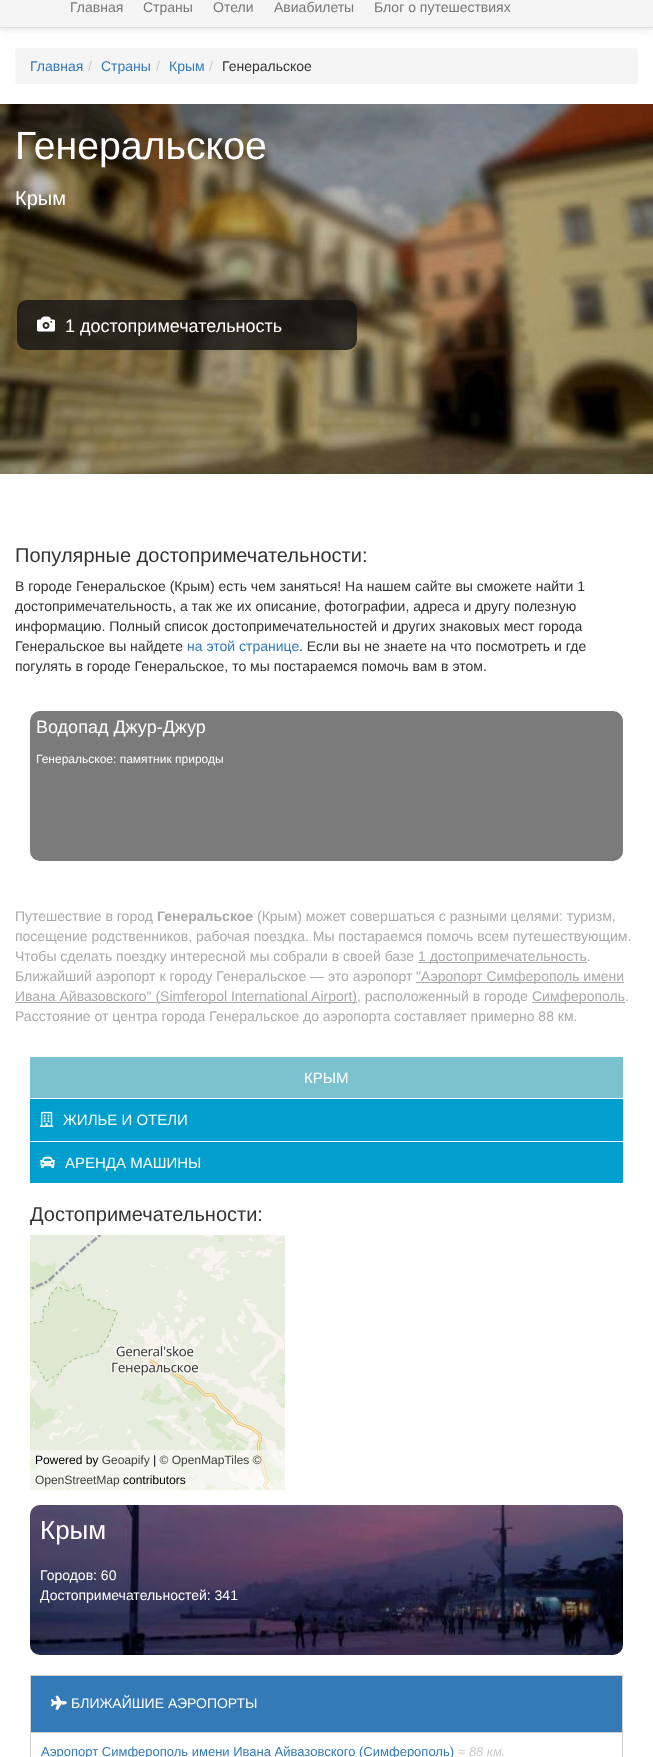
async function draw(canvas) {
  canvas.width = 653;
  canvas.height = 1757;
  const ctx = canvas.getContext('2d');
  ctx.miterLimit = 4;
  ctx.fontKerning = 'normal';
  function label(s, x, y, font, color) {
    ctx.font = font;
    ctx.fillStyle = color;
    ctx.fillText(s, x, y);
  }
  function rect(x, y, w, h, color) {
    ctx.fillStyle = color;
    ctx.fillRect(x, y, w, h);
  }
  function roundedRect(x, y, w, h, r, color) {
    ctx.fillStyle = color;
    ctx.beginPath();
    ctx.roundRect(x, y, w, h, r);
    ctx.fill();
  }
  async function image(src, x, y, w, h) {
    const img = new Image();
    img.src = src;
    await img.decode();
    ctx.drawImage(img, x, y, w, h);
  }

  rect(0, 0, 653, 1757, '#fff');
  ctx.fillStyle = '#3232321a';
  ctx.filter = 'blur(5px)';
  ctx.beginPath();
  ctx.rect(0, -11, 653, 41);
  ctx.fill();
  ctx.filter = 'none';
  rect(1, 0, 651, 27, '#f5f5f5');
  rect(0, 27, 653, 1, '#ddd');
  label('Главная', 70, 12, '14px Liberation Sans', '#777');
  label('Страны', 143, 12, '14px Liberation Sans', '#777');
  label('Отели', 213, 12, '14px Liberation Sans', '#777');
  label('Авиабилеты', 274, 12, '14px Liberation Sans', '#777');
  label('Блог о путешествиях', 374, 12, '14px Liberation Sans', '#777');
  roundedRect(15, 48, 623, 36, 4, '#f5f5f5');
  label('Главная', 30, 71, '14px Liberation Sans', '#337ab7');
  label('/', 88, 71, '14px Liberation Sans', '#ccc');
  label('Страны', 101, 71, '14px Liberation Sans', '#337ab7');
  label('/', 156, 71, '14px Liberation Sans', '#ccc');
  label('Крым', 169, 71, '14px Liberation Sans', '#337ab7');
  label('/', 209, 71, '14px Liberation Sans', '#ccc');
  label('Генеральское', 222, 71, '14px Liberation Sans', '#333');
  await image('assets/img1.png', 0, 104, 653, 370);
  label('Генеральское', 15, 159, '39.25px Liberation Sans', '#fff');
  label('Крым', 15, 205, '20px Liberation Sans', '#fff');
  roundedRect(17, 300, 340, 50, 10, '#141414cc');
  await image('assets/img2.png', 37, 316, 18, 16);
  label('1 достопримечательность', 65, 332, '18px Liberation Sans', '#fff');
  label('Популярные достопримечательности:', 15, 562, '20px Liberation Sans', '#333');
  label('В городе Генеральское (Крым) есть чем заняться! На нашем сайте вы сможете найти 1', 15, 591, '14px Liberation Sans', '#333');
  label('достопримечательность, а так же их описание, фотографии, адреса и другу полезную', 15, 611, '14px Liberation Sans', '#333');
  label('информацию. Полный список достопримечательностей и других знаковых мест города', 15, 631, '14px Liberation Sans', '#333');
  label('Генеральское вы найдете', 15, 651, '14px Liberation Sans', '#333');
  label('на этой странице', 187, 651, '14px Liberation Sans', '#337ab7');
  label('. Если вы не знаете на что посмотреть и где', 299, 651, '14px Liberation Sans', '#333');
  label('погулять в городе Генеральское, то мы постараемся помочь вам в этом.', 15, 671, '14px Liberation Sans', '#333');
  roundedRect(30, 711, 593, 150, 10, '#cecece');
  roundedRect(30, 711, 593, 150, 10, '#00000066');
  label('Водопад Джур-Джур', 36, 733, '18px Liberation Sans', '#fff');
  label('Генеральское: памятник природы', 36, 763, '12px Liberation Sans', '#fff');
  label('Путешествие в город', 15, 921, '14px Liberation Sans', '#aaa');
  label('Генеральское', 157, 921, 'bold 14px Liberation Sans', '#aaa');
  label('(Крым) может совершаться с разными целями: туризм,', 257, 921, '14px Liberation Sans', '#aaa');
  label('посещение родственников, рабочая поездка. Мы постараемся помочь всем путешествующим.', 15, 941, '14px Liberation Sans', '#aaa');
  label('Чтобы сделать поездку интересной мы собрали в своей базе', 15, 961, '14px Liberation Sans', '#aaa');
  rect(418, 962, 169, 1, '#aaa');
  label('1 достопримечательность.', 418, 961, '14px Liberation Sans', '#aaa');
  label('Ближайший аэропорт к городу Генеральское — это аэропорт', 15, 981, '14px Liberation Sans', '#aaa');
  rect(416, 982, 208, 1, '#aaa');
  label('"Аэропорт Симферополь имени', 416, 981, '14px Liberation Sans', '#aaa');
  rect(15, 1002, 342, 1, '#aaa');
  label('Ивана Айвазовского" (Simferopol International Airport), расположенный в городе', 15, 1001, '14px Liberation Sans', '#aaa');
  rect(532, 1002, 93, 1, '#aaa');
  label('Симферополь.', 532, 1001, '14px Liberation Sans', '#aaa');
  label('Расстояние от центра города Генеральское до аэропорта составляет примерно 88 км.', 15, 1021, '14px Liberation Sans', '#aaa');
  rect(30, 1057, 593, 41, '#7cc2ce');
  label('КРЫМ', 304, 1083, '15px Liberation Sans', '#fff');
  rect(30, 1099, 593, 42, '#009fce');
  await image('assets/img3.png', 40, 1111, 14, 16);
  label('ЖИЛЬЕ И ОТЕЛИ', 63, 1125, '15px Liberation Sans', '#fff');
  rect(30, 1142, 593, 41, '#009fce');
  await image('assets/img4.png', 40, 1156, 15, 12);
  label('АРЕНДА МАШИНЫ', 65, 1168, '15px Liberation Sans', '#fff');
  label('Достопримечательности:', 30, 1221, '20px Liberation Sans', '#333');
  await image('assets/img5.png', 30, 1235, 255, 255);
  await image('assets/img6.png', 30, 1505, 593, 150);
  roundedRect(30, 1505, 593, 150, 10, '#00000066');
  label('Крым', 40, 1539, '26px Liberation Sans', '#fff');
  label('Городов: 60', 40, 1580, '14px Liberation Sans', '#fff');
  label('Достопримечательностей: 341', 40, 1600, '14px Liberation Sans', '#fff');
  ctx.strokeStyle = '#cfcfcf';
  ctx.strokeRect(30.5, 1675.5, 592, 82);
  rect(31, 1676, 591, 56, '#337ab7');
  await image('assets/img7.png', 51, 1695, 16, 15);
  label('БЛИЖАЙШИЕ АЭРОПОРТЫ', 71, 1708, '14px Liberation Sans', '#fff');
  rect(31, 1732, 591, 1, '#cfcfcf');
  label('Аэропорт Симферополь имени Ивана Айвазовского (Симферополь)', 41, 1756, '13px Liberation Sans', '#337ab7');
  label('≈ 88 км.', 458, 1756, 'italic 13px Liberation Sans', '#ccc');
}

draw(document.querySelector('canvas'));
